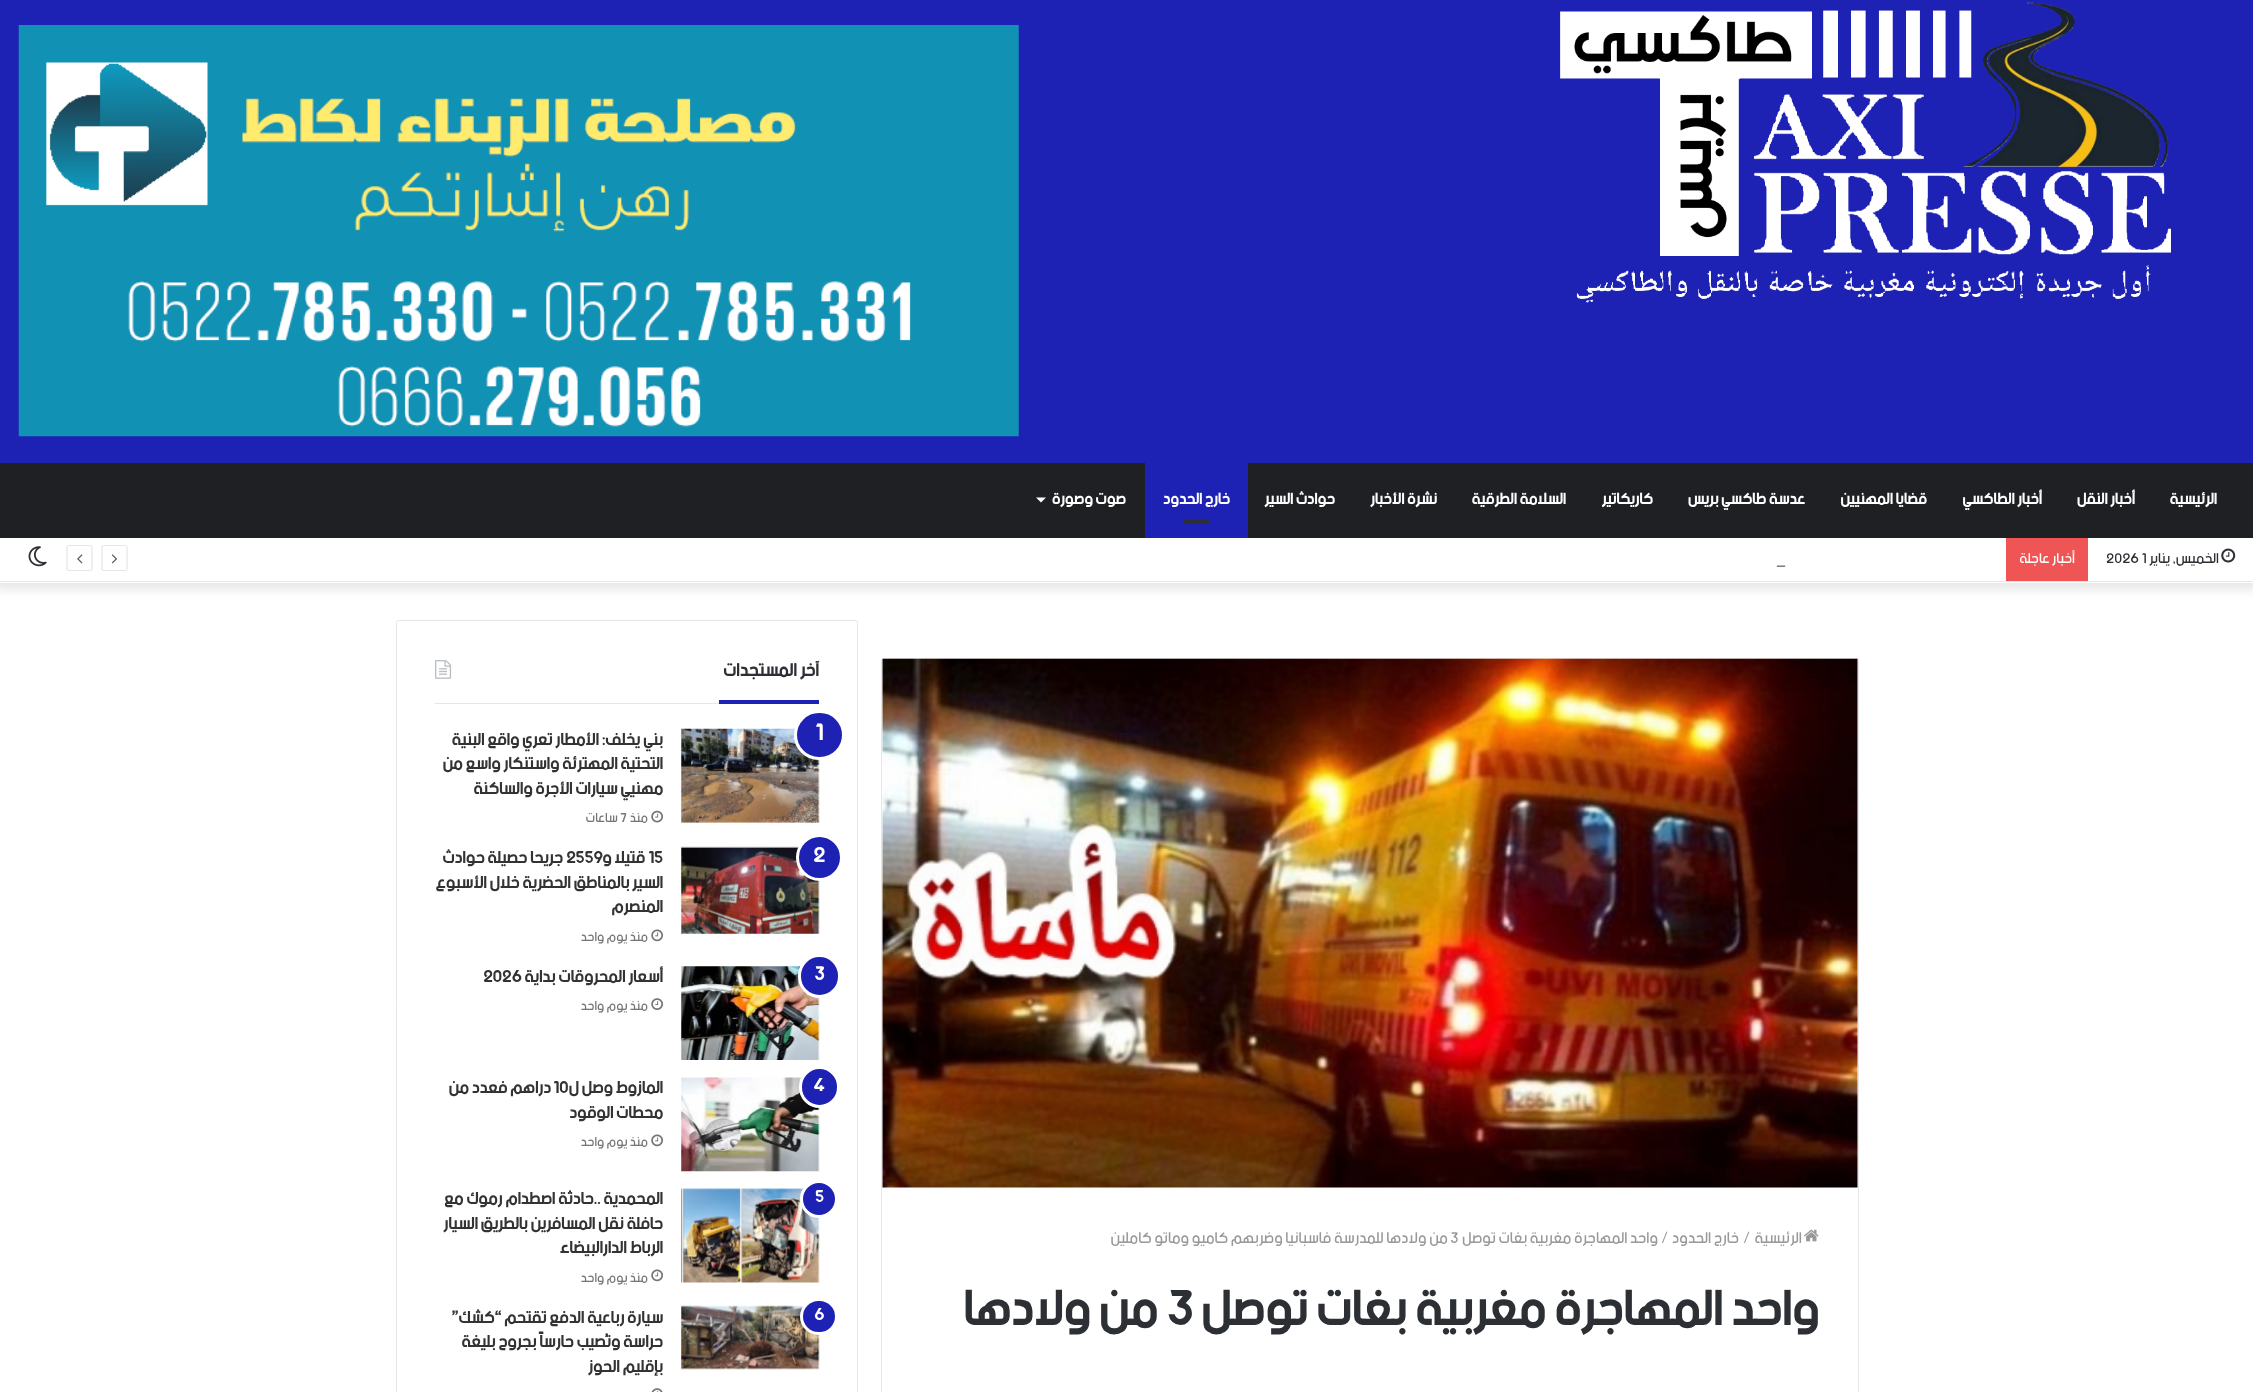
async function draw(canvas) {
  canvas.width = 2253;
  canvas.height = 1392;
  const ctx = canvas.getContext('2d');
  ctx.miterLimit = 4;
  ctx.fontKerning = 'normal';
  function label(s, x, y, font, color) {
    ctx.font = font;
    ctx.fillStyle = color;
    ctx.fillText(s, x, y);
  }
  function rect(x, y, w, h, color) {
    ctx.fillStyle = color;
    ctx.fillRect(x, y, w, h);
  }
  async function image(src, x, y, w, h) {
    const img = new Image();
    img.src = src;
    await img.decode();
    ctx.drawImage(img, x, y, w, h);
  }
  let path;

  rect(0, 0, 2253, 1392, '#fff');
  ctx.fillStyle = '#0000001a';
  ctx.filter = 'blur(6px)';
  ctx.beginPath();
  ctx.rect(-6, -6, 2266, 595);
  ctx.fill();
  ctx.filter = 'none';
  rect(0, 0, 2253, 463, '#1e22b4');
  await image('assets/img1.png', 1560, 2, 611, 301);
  await image('assets/img2.png', 18, 25, 1001, 412);
  rect(0, 463, 2253, 75, '#1f2024');
  ctx.direction = 'rtl';
  label('الرئيسية', 2217, 504, 'bold 16.25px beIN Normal', '#fff');
  label('أخبار النقل', 2135, 504, 'bold 16.25px beIN Normal', '#fff');
  label('أخبار الطاكسي', 2042, 504, 'bold 16.25px beIN Normal', '#fff');
  label('قضايا المهنيين', 1927, 504, 'bold 16.25px beIN Normal', '#fff');
  label('عدسة طاكسي بريس', 1805, 504, 'bold 16.25px beIN Normal', '#fff');
  label('كاريكاتير', 1653, 504, 'bold 16.25px beIN Normal', '#fff');
  label('السلامة الطرقية', 1566, 504, 'bold 16.25px beIN Normal', '#fff');
  label('نشرة الأخبار', 1437, 504, 'bold 16.25px beIN Normal', '#fff');
  label('حوادث السير', 1335, 504, 'bold 16.25px beIN Normal', '#fff');
  rect(1145, 463, 103, 75, '#1e22b4');
  label('خارج الحدود', 1230, 504, 'bold 16.25px beIN Normal', '#fff');
  rect(1184, 520, 25, 3, '#2c2f34');
  label('صوت وصورة', 1126, 504, 'bold 16.25px beIN Normal', '#fff');
  path = new Path2D('M1036 497.5H1046L1041 502.5Z');
  ctx.fill(path);
  rect(0, 538, 2253, 45, '#fff');
  rect(0, 581, 2253, 1, '#e6e6e6');
  await image('assets/img3.png', 2221, 548, 15, 15);
  label('الخميس, يناير', 2219, 563, '15px beIN Normal', '#2c2f34');
  ctx.direction = 'ltr';
  label('2026 1', 2106, 563, '15px beIN Normal', '#2c2f34');
  rect(2006, 538, 82, 43, '#f05555');
  ctx.direction = 'rtl';
  label('أخبار عاجلة', 2075, 563, '15px beIN Normal', '#fff');
  ctx.direction = 'ltr';
  label('_', 1776, 564, '16.25px beIN Normal', '#2c2f34');
  path = new Path2D('M125 570.5H104C102.5 570.5 102 570 102 569V547.5C102 546.5 102.5 545.5 104 545.5H125C126 545.5 127 546.5 127 547.5V569C127 570 126 570.5 125 570.5Z');
  ctx.strokeStyle = '#e6e6e6';
  ctx.lineWidth = 1.2;
  ctx.stroke(path);
  await image('assets/img4.png', 111, 554, 6, 10);
  path = new Path2D('M90 570.5H69C67.5 570.5 67 570 67 569V547.5C67 546.5 67.5 545.5 69 545.5H90C91 545.5 92 546.5 92 547.5V569C92 570 91 570.5 90 570.5Z');
  ctx.stroke(path);
  await image('assets/img5.png', 77, 554, 6, 10);
  await image('assets/img6.png', 28, 546, 19, 21);
  ctx.beginPath();
  ctx.roundRect(881.5, 658.5, 977, 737, 2);
  ctx.lineWidth = 1;
  ctx.stroke();
  await image('assets/img7.png', 882, 658, 976, 530);
  await image('assets/img8.png', 1804, 1229, 15, 13);
  ctx.direction = 'rtl';
  label('الرئيسية', 1802, 1243, '16.25px beIN Normal', '#999');
  ctx.direction = 'ltr';
  label('/', 1743, 1243, '16.25px beIN Normal', '#999');
  ctx.direction = 'rtl';
  label('خارج الحدود', 1739, 1243, '16.25px beIN Normal', '#999');
  ctx.direction = 'ltr';
  label('/', 1661, 1243, '16.25px beIN Normal', '#999');
  ctx.direction = 'rtl';
  label('واحد المهاجرة مغربية بغات توصل', 1658, 1243, '16.25px beIN Normal', '#999');
  ctx.direction = 'ltr';
  label('3', 1450, 1243, '16.25px beIN Normal', '#999');
  ctx.direction = 'rtl';
  label('من ولادها للمدرسة فاسبانيا وضربهم كاميو وماتو كاملين', 1448, 1243, '16.25px beIN Normal', '#999');
  label('واحد المهاجرة مغربية بغات توصل', 1819, 1325, 'bold 51.25px beIN Normal', '#2c2f34');
  ctx.direction = 'ltr';
  label('3', 1166, 1325, 'bold 51.25px beIN Normal', '#2c2f34');
  ctx.direction = 'rtl';
  label('من ولادها', 1158, 1325, 'bold 51.25px beIN Normal', '#2c2f34');
  ctx.beginPath();
  ctx.roundRect(396.5, 620.5, 461, 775, 2);
  ctx.stroke();
  rect(435, 703, 284, 1, '#e6e6e6');
  label('آخر المستجدات', 819, 676, 'bold 18.75px beIN Normal', '#2c2f34');
  await image('assets/img9.png', 435, 660, 17, 19);
  rect(719, 700, 100, 4, '#1e22b4');
  await image('assets/img10.png', 681, 728, 139, 95);
  ctx.beginPath();
  ctx.roundRect(795.5, 711.5, 48, 47, 23.5);
  ctx.fill();
  ctx.strokeStyle = '#fff';
  ctx.lineWidth = 3;
  ctx.stroke();
  ctx.direction = 'ltr';
  label('1', 815, 740, 'bold 24px beIN Normal', '#fff');
  ctx.direction = 'rtl';
  label('بني يخلف: الأمطار تعري واقع البنية', 663, 745, 'bold 17.5px beIN Normal', '#333');
  label('التحتية المهترئة واستنكار واسع من', 663, 769, 'bold 17.5px beIN Normal', '#333');
  label('مهنيي سيارات الأجرة والساكنة', 663, 794, 'bold 17.5px beIN Normal', '#333');
  await image('assets/img11.png', 651, 810, 12, 13);
  label('منذ', 648, 822, '13.75px beIN Normal', '#767676');
  ctx.direction = 'ltr';
  label('7', 620, 822, '13.75px beIN Normal', '#767676');
  ctx.direction = 'rtl';
  label('ساعات', 618, 822, '13.75px beIN Normal', '#767676');
  await image('assets/img12.png', 681, 846, 139, 88);
  ctx.fillStyle = '#1e22b4';
  ctx.beginPath();
  ctx.arc(819.5, 857.5, 22, 0, 2 * Math.PI);
  ctx.fill();
  ctx.stroke();
  ctx.direction = 'ltr';
  label('2', 813, 862, 'bold 22px beIN Normal', '#fff');
  label('15', 648, 863, 'bold 17.5px beIN Normal', '#333');
  ctx.direction = 'rtl';
  label('قتيلا و', 645, 863, 'bold 17.5px beIN Normal', '#333');
  ctx.direction = 'ltr';
  label('2559', 566, 863, 'bold 17.5px beIN Normal', '#333');
  ctx.direction = 'rtl';
  label('جريحا حصيلة حوادث', 563, 863, 'bold 17.5px beIN Normal', '#333');
  label('السير بالمناطق الحضرية خلال الأسبوع', 663, 888, 'bold 17.5px beIN Normal', '#333');
  label('المنصرم', 663, 912, 'bold 17.5px beIN Normal', '#333');
  await image('assets/img13.png', 651, 929, 12, 13);
  label('منذ يوم واحد', 648, 941, '13.75px beIN Normal', '#767676');
  await image('assets/img14.png', 681, 966, 139, 94);
  label('أسعار المحروقات بداية', 663, 982, 'bold 17.5px beIN Normal', '#333');
  ctx.direction = 'ltr';
  label('2026', 483, 982, 'bold 17.5px beIN Normal', '#333');
  await image('assets/img15.png', 651, 998, 12, 12);
  ctx.direction = 'rtl';
  label('منذ يوم واحد', 648, 1010, '13.75px beIN Normal', '#767676');
  ctx.fillStyle = '#1e22b4';
  ctx.beginPath();
  ctx.roundRect(799.5, 955.5, 40, 41, 20);
  ctx.fill();
  ctx.stroke();
  ctx.direction = 'ltr';
  label('3', 814, 980, 'bold 20px beIN Normal', '#fff');
  await image('assets/img16.png', 681, 1077, 139, 95);
  ctx.fillStyle = '#1e22b4';
  ctx.beginPath();
  ctx.roundRect(800.5, 1067.5, 38, 39, 19);
  ctx.fill();
  ctx.stroke();
  label('4', 813, 1091, 'bold 19px beIN Normal', '#fff');
  ctx.direction = 'rtl';
  label('المازوط وصل ل', 663, 1093, 'bold 17.5px beIN Normal', '#333');
  ctx.direction = 'ltr';
  label('10', 553, 1093, 'bold 17.5px beIN Normal', '#333');
  ctx.direction = 'rtl';
  label('دراهم فعدد من', 551, 1093, 'bold 17.5px beIN Normal', '#333');
  label('محطات الوقود', 663, 1118, 'bold 17.5px beIN Normal', '#333');
  await image('assets/img13.png', 651, 1134, 12, 13);
  label('منذ يوم واحد', 648, 1146, '13.75px beIN Normal', '#767676');
  await image('assets/img17.png', 681, 1188, 139, 95);
  label('المحمدية ..حادثة اصطدام رموك مع', 663, 1204, 'bold 17.5px beIN Normal', '#333');
  label('حافلة نقل المسافرين بالطريق السيار', 663, 1229, 'bold 17.5px beIN Normal', '#333');
  label('الرباط الدارالبيضاء', 663, 1253, 'bold 17.5px beIN Normal', '#333');
  await image('assets/img13.png', 651, 1269, 12, 13);
  label('منذ يوم واحد', 648, 1282, '13.75px beIN Normal', '#767676');
  ctx.fillStyle = '#1e22b4';
  ctx.beginPath();
  ctx.arc(819, 1199, 17.5, 0, 2 * Math.PI);
  ctx.fill();
  ctx.stroke();
  ctx.direction = 'ltr';
  label('5', 815, 1202, 'bold 17.5px beIN Normal', '#fff');
  await image('assets/img18.png', 681, 1305, 139, 65);
  ctx.fillStyle = '#1e22b4';
  ctx.beginPath();
  ctx.roundRect(801.5, 1299.5, 35, 34, 17);
  ctx.fill();
  ctx.stroke();
  label('6', 814, 1320, 'bold 17.5px beIN Normal', '#fff');
  ctx.direction = 'rtl';
  label('سيارة رباعية الدفع تقتحم “كشك”', 663, 1323, 'bold 17.5px beIN Normal', '#333');
  label('حراسة وتُصيب حارساً بجروح بليغة', 663, 1347, 'bold 17.5px beIN Normal', '#333');
  label('بإقليم الحوز', 663, 1372, 'bold 17.5px beIN Normal', '#333');
  await image('assets/img19.png', 651, 1388, 12, 4);
}

draw(document.querySelector('canvas'));
